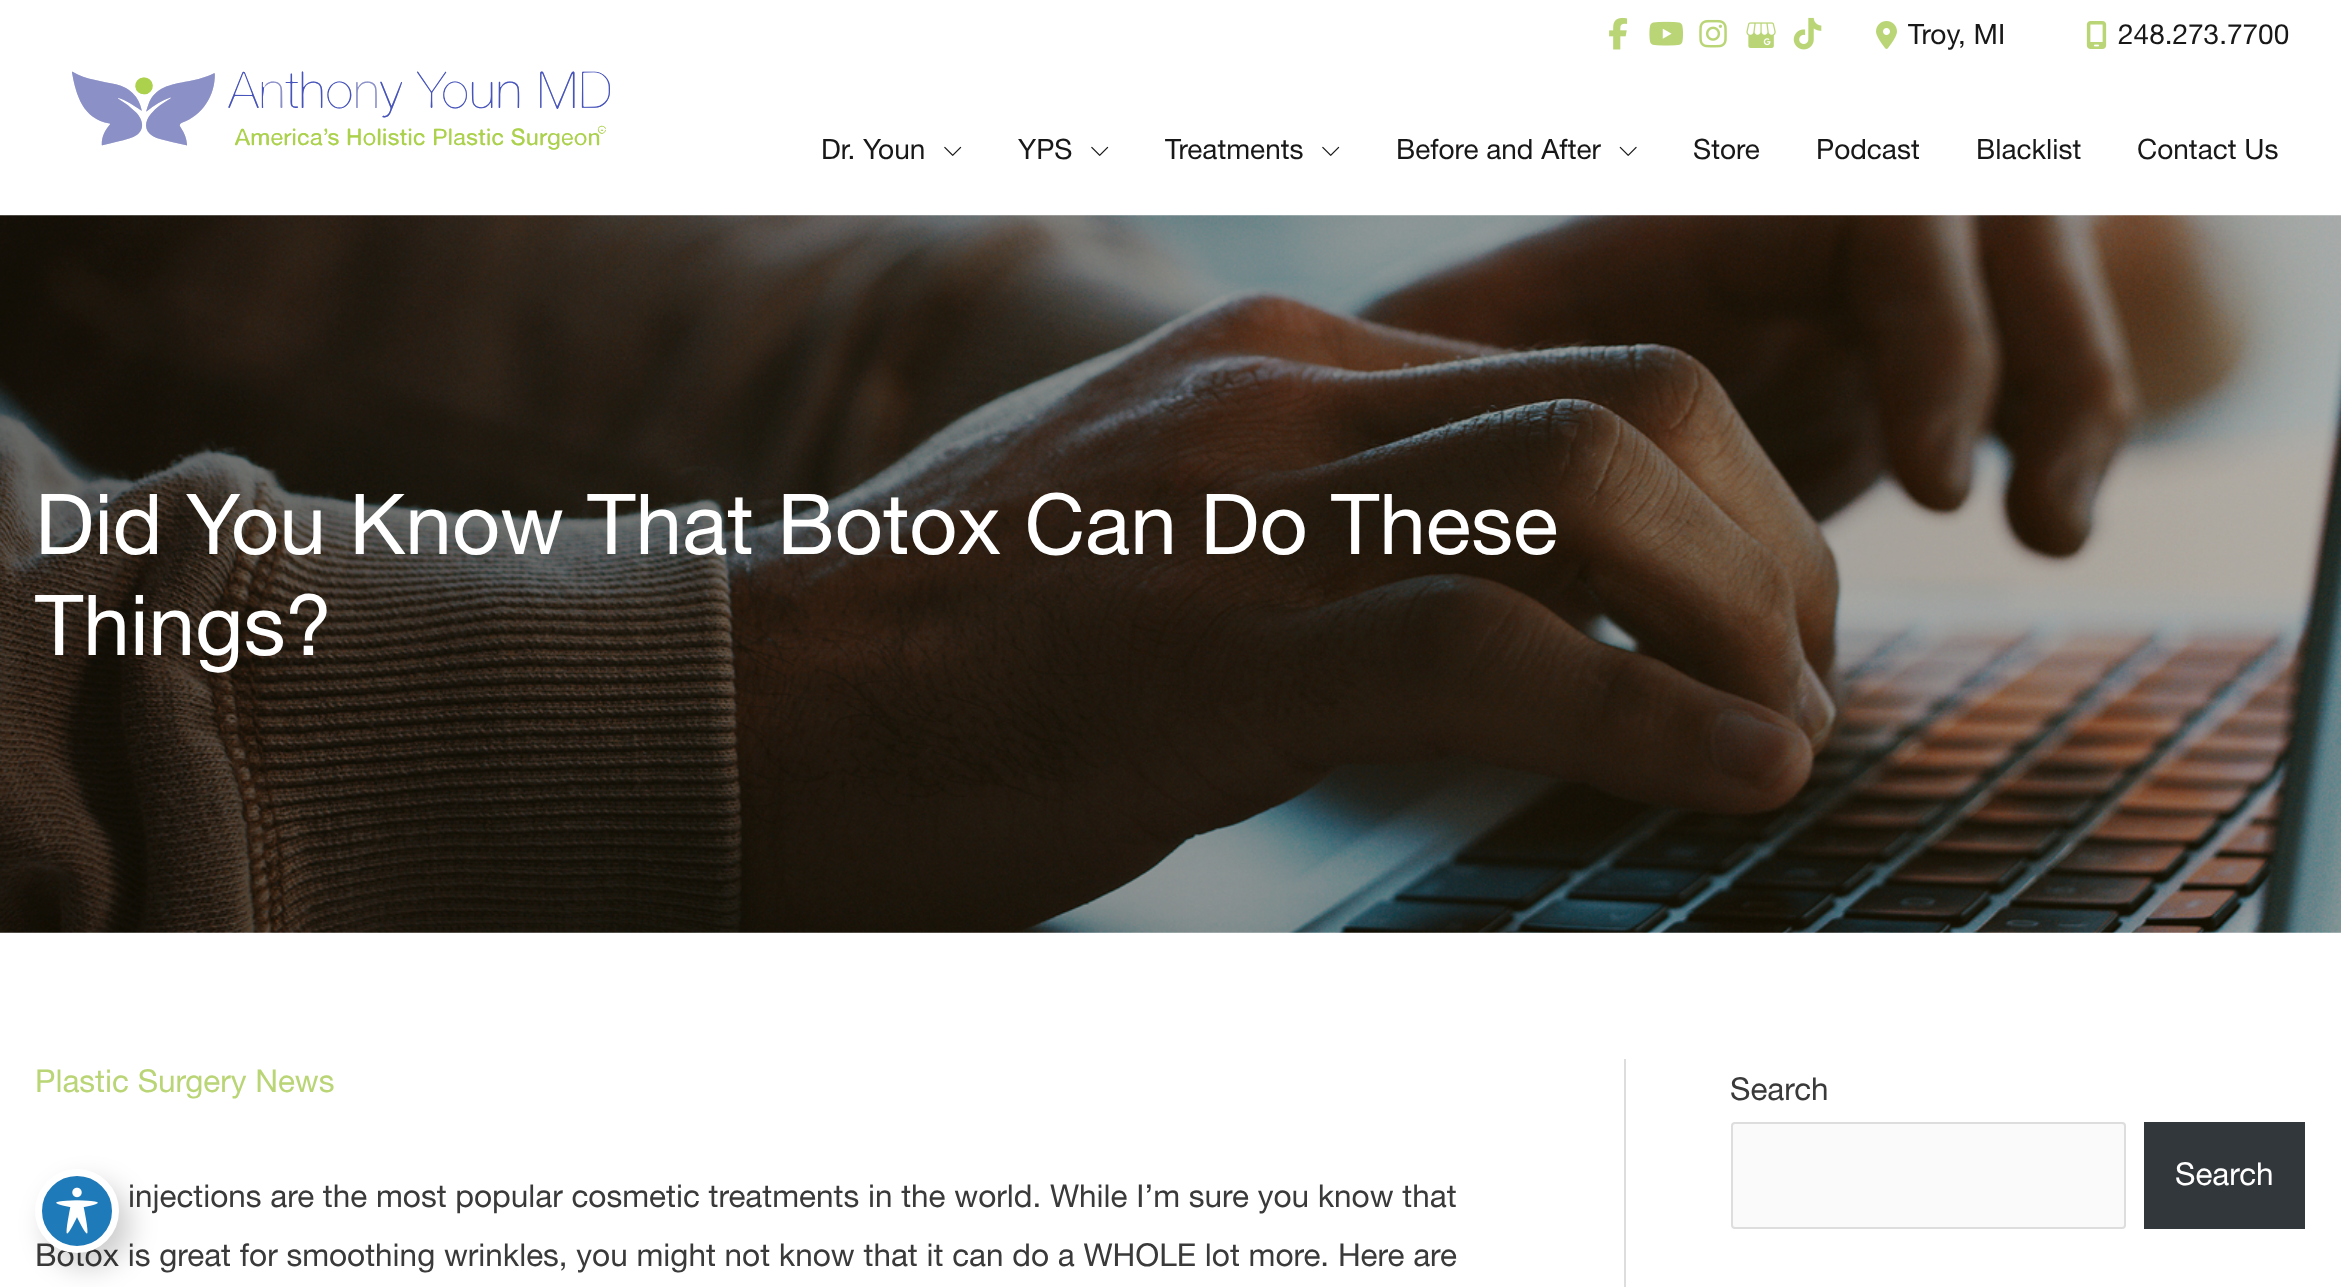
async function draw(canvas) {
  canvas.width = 2341;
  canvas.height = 1287;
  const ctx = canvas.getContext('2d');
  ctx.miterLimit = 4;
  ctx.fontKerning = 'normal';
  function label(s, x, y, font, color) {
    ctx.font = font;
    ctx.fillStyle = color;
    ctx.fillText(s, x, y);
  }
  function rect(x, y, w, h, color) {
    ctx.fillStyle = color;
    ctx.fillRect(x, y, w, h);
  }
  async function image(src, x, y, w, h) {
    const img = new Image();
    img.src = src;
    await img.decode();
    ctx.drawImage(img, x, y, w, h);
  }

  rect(0, 0, 2341, 1287, '#fff');
  await image('assets/img1.png', 1609, 17, 19, 33);
  await image('assets/img2.png', 1649, 21, 34, 25);
  await image('assets/img3.png', 1699, 19, 28, 29);
  await image('assets/img4.png', 1746, 22, 30, 26);
  await image('assets/img5.png', 1793, 17, 29, 33);
  await image('assets/img6.png', 1876, 21, 21, 28);
  label('Troy', 1908, 44, '28px Helvetica Neue', '#181818');
  label(', MI', 1958, 44, '28px Helvetica Neue', '#181818');
  await image('assets/img7.png', 2086, 21, 21, 28);
  label('248.273.7700', 2118, 44, '28px Helvetica Neue', '#181818');
  await image('assets/img8.png', 72, 71, 538, 79);
  label('Dr. Youn', 821, 159, '28px Helvetica Neue', '#181818');
  await image('assets/img9.png', 944, 146, 18, 10);
  label('YPS', 1018, 159, '28px Helvetica Neue', '#181818');
  await image('assets/img9.png', 1091, 146, 18, 10);
  label('Treatments', 1165, 159, '28px Helvetica Neue', '#181818');
  await image('assets/img9.png', 1322, 146, 18, 10);
  label('Before and After', 1396, 159, '28px Helvetica Neue', '#181818');
  await image('assets/img10.png', 1619, 146, 18, 10);
  label('Store', 1693, 159, '28px Helvetica Neue', '#181818');
  label('Podcast', 1816, 159, '28px Helvetica Neue', '#181818');
  label('Blacklist', 1976, 159, '28px Helvetica Neue', '#181818');
  label('Contact Us', 2137, 159, '28px Helvetica Neue', '#181818');
  await image('assets/img11.png', 0, 215, 2341, 718);
  label('Did You Know That Botox Can Do These', 35, 554, '84px Helvetica Neue', '#fff');
  label('Things?', 35, 655, '84px Helvetica Neue', '#fff');
  rect(1624, 1059, 2, 228, '#ddd');
  label('Plastic Surgery News', 35, 1092, '31.5px Helvetica Neue', '#b9d576');
  label('injections are the most popular cosmetic treatments in the world. While I’m sure you know that', 128, 1207, '31.5px Helvetica Neue', '#3a3a3a');
  label('Botox is great for smoothing wrinkles, you might not know that it can do a WHOLE lot more. Here are', 35, 1266, '31.5px Helvetica Neue', '#3a3a3a');
  label('Search', 1730, 1100, '31.5px Helvetica Neue', '#3a3a3a');
  ctx.fillStyle = '#fafafa';
  ctx.beginPath();
  ctx.roundRect(1732, 1123, 393, 105, 3);
  ctx.fill();
  ctx.strokeStyle = '#ddd';
  ctx.lineWidth = 2;
  ctx.stroke();
  rect(2144, 1122, 161, 107, '#32373c');
  label('Search', 2175, 1185, '31.5px Helvetica Neue', '#fff');
  ctx.fillStyle = '#00000033';
  ctx.filter = 'blur(14px)';
  ctx.beginPath();
  ctx.roundRect(46, 1183, 84, 84, 42);
  ctx.fill();
  ctx.filter = 'none';
  ctx.fillStyle = '#1e7ab9';
  ctx.beginPath();
  ctx.arc(77, 1211, 38.5, 0, 2 * Math.PI);
  ctx.fill();
  ctx.strokeStyle = '#fff';
  ctx.lineWidth = 7;
  ctx.stroke();
  await image('assets/img12.png', 56, 1187, 42, 47);
}

draw(document.querySelector('canvas'));
